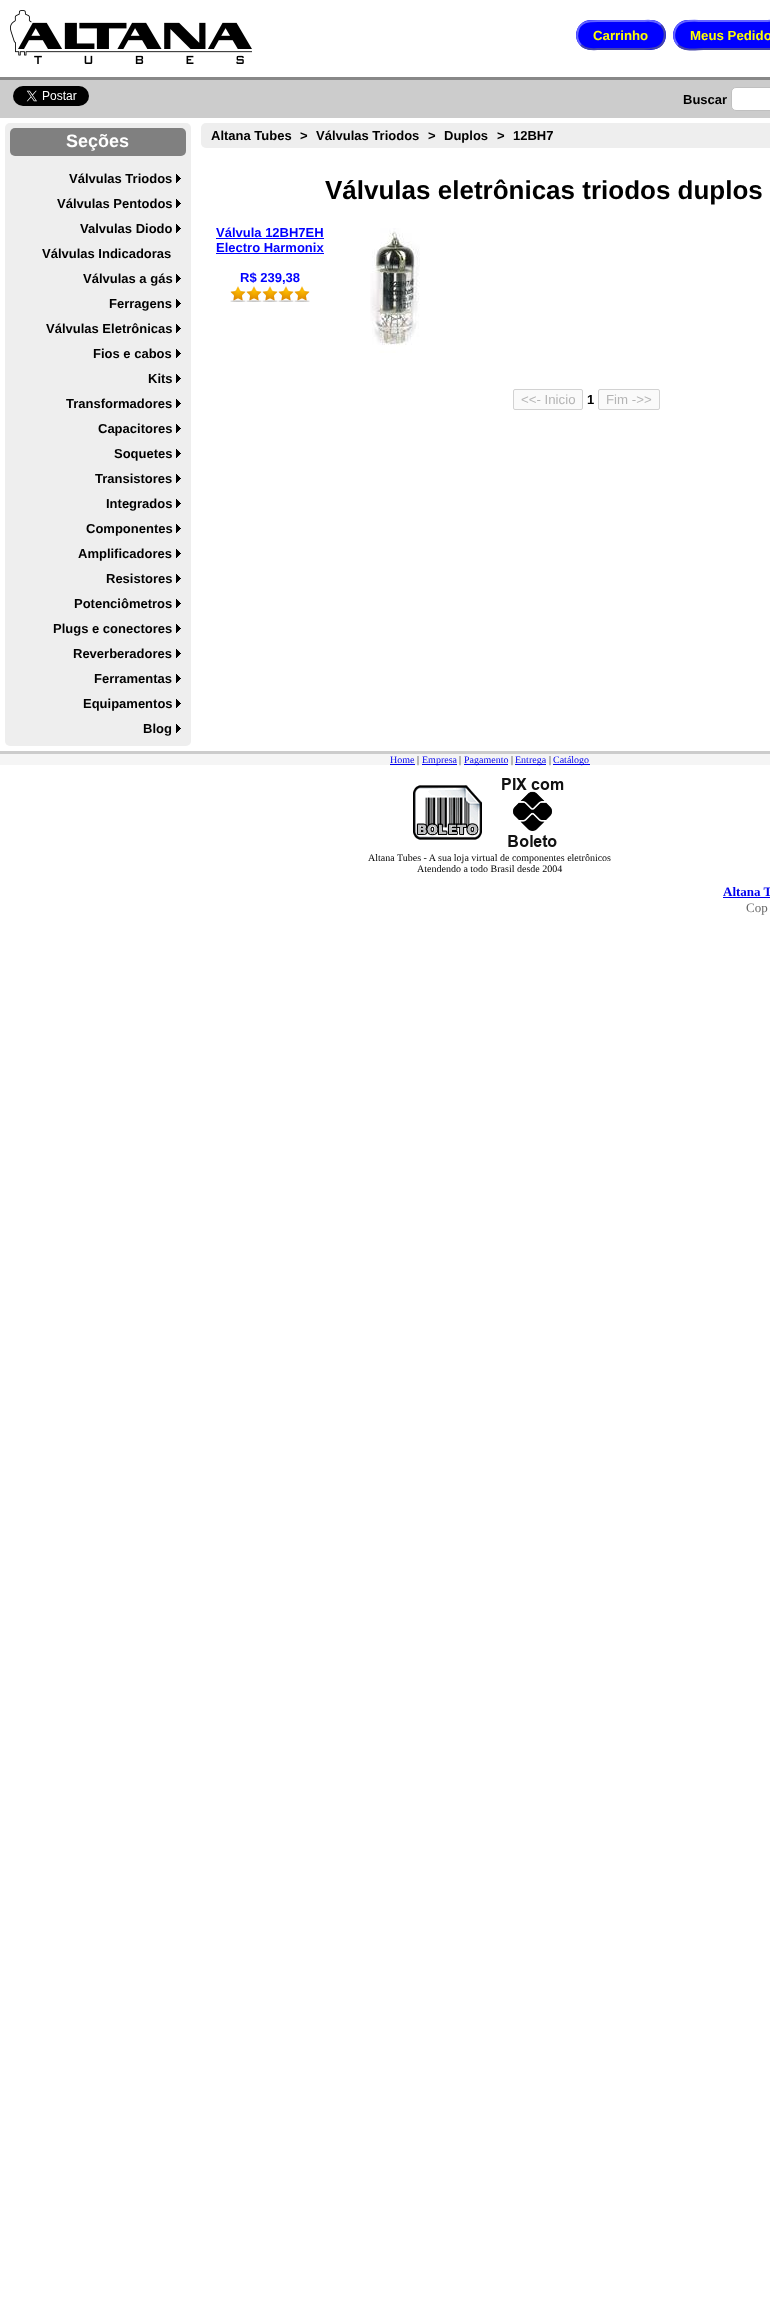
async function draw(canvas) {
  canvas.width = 770;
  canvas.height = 2320;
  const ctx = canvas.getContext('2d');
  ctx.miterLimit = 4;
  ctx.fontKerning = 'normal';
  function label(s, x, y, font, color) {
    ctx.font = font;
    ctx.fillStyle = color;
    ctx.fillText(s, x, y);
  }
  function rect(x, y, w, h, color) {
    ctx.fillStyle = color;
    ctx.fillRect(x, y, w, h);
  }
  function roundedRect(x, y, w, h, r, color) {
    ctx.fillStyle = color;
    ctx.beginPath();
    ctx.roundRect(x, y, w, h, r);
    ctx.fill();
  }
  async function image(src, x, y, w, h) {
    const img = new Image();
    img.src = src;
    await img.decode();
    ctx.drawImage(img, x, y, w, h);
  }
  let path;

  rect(0, 0, 770, 2320, '#fff');
  rect(0, 77, 770, 3, '#888');
  await image('assets/img1.png', 10, 10, 242, 54);
  roundedRect(576, 20, 90, 30, 15, '#00f');
  path = new Path2D('M661 25C664 28.5 665.5 33 664.5 37.5C662.5 50 651 49 641 49H601C594 49 586.5 50.5 581 45');
  ctx.strokeStyle = '#44a';
  ctx.lineWidth = 2;
  ctx.stroke(path);
  path = new Path2D('M581 45C578 41.5 576.5 37 577.5 32.5C579.5 20 591 21 601 21H641C648 21 655.5 19.5 661 25');
  ctx.strokeStyle = '#66f';
  ctx.stroke(path);
  label('Carrinho', 593, 40, 'bold 13.25px Liberation Sans', '#ff0');
  roundedRect(673, 20, 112, 30, 15, '#00f');
  path = new Path2D('M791 25C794 28.5 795.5 33 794.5 37.5C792 52 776 49 765.5 49H703.5C696 49 684.5 51.5 678 45');
  ctx.strokeStyle = '#44a';
  ctx.stroke(path);
  path = new Path2D('M678 45C675 41.5 673.5 37 674.5 32.5C677 18 693 21 703.5 21H765.5C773 21 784.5 18.5 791 25');
  ctx.strokeStyle = '#66f';
  ctx.stroke(path);
  label('Meus Pedido', 690, 40, 'bold 13.25px Liberation Sans', '#ff0');
  rect(0, 80, 770, 38, '#ccc');
  await image('assets/img2.png', 13, 86, 76, 20);
  label('Buscar', 683, 104, 'bold 13px Liberation Sans', '#000');
  ctx.fillStyle = '#fff';
  ctx.beginPath();
  ctx.roundRect(731.5, 87.5, 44, 23, 4.5);
  ctx.fill();
  ctx.strokeStyle = '#c0c0c0';
  ctx.lineWidth = 1;
  ctx.stroke();
  roundedRect(5, 123, 186, 623, 5, '#eee');
  roundedRect(10, 128, 176, 28, 5, '#808080');
  label('Seções', 66, 147, 'bold 18px Liberation Sans', '#fff');
  await image('assets/img3.png', 176, 174, 5, 9);
  label('Válvulas Triodos', 69, 183, 'bold 13px Liberation Sans', '#000');
  await image('assets/img3.png', 176, 199, 5, 9);
  label('Válvulas Pentodos', 57, 208, 'bold 13px Liberation Sans', '#000');
  await image('assets/img3.png', 176, 224, 5, 9);
  label('Valvulas Diodo', 80, 233, 'bold 13px Liberation Sans', '#000');
  label('Válvulas Indicadoras', 42, 258, 'bold 13px Liberation Sans', '#000');
  await image('assets/img3.png', 176, 274, 5, 9);
  label('Válvulas a gás', 83, 283, 'bold 13px Liberation Sans', '#000');
  await image('assets/img3.png', 176, 299, 5, 9);
  label('Ferragens', 109, 308, 'bold 13px Liberation Sans', '#000');
  await image('assets/img3.png', 176, 324, 5, 9);
  label('Válvulas Eletrônicas', 46, 333, 'bold 13px Liberation Sans', '#000');
  await image('assets/img3.png', 176, 349, 5, 9);
  label('Fios e cabos', 93, 358, 'bold 13px Liberation Sans', '#000');
  await image('assets/img3.png', 176, 374, 5, 9);
  label('Kits', 148, 383, 'bold 13px Liberation Sans', '#000');
  await image('assets/img3.png', 176, 399, 5, 9);
  label('Transformadores', 66, 408, 'bold 13px Liberation Sans', '#000');
  await image('assets/img3.png', 176, 424, 5, 9);
  label('Capacitores', 98, 433, 'bold 13px Liberation Sans', '#000');
  await image('assets/img3.png', 176, 449, 5, 9);
  label('Soquetes', 114, 458, 'bold 13px Liberation Sans', '#000');
  await image('assets/img3.png', 176, 474, 5, 9);
  label('Transistores', 95, 483, 'bold 13px Liberation Sans', '#000');
  await image('assets/img3.png', 176, 499, 5, 9);
  label('Integrados', 106, 508, 'bold 13px Liberation Sans', '#000');
  await image('assets/img3.png', 176, 524, 5, 9);
  label('Componentes', 86, 533, 'bold 13px Liberation Sans', '#000');
  await image('assets/img3.png', 176, 549, 5, 9);
  label('Amplificadores', 78, 558, 'bold 13px Liberation Sans', '#000');
  await image('assets/img3.png', 176, 574, 5, 9);
  label('Resistores', 106, 583, 'bold 13px Liberation Sans', '#000');
  await image('assets/img3.png', 176, 599, 5, 9);
  label('Potenciômetros', 74, 608, 'bold 13px Liberation Sans', '#000');
  await image('assets/img3.png', 176, 624, 5, 9);
  label('Plugs e conectores', 53, 633, 'bold 13px Liberation Sans', '#000');
  await image('assets/img3.png', 176, 649, 5, 9);
  label('Reverberadores', 73, 658, 'bold 13px Liberation Sans', '#000');
  await image('assets/img3.png', 176, 674, 5, 9);
  label('Ferramentas', 94, 683, 'bold 13px Liberation Sans', '#000');
  await image('assets/img3.png', 176, 699, 5, 9);
  label('Equipamentos', 83, 708, 'bold 13px Liberation Sans', '#000');
  await image('assets/img3.png', 176, 724, 5, 9);
  label('Blog', 143, 733, 'bold 13px Liberation Sans', '#000');
  roundedRect(201, 123, 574, 25, 5, '#eee');
  label('Altana Tubes', 211, 140, 'bold 13px Liberation Sans', '#000');
  label('>', 300, 140, 'bold 13px Liberation Sans', '#000');
  label('Válvulas Triodos', 316, 140, 'bold 13px Liberation Sans', '#000');
  label('>', 428, 140, 'bold 13px Liberation Sans', '#000');
  label('Duplos', 444, 140, 'bold 13px Liberation Sans', '#000');
  label('>', 497, 140, 'bold 13px Liberation Sans', '#000');
  label('12BH7', 513, 140, 'bold 13px Liberation Sans', '#000');
  label('Válvulas eletrônicas triodos duplos', 325, 199, 'bold 26px Liberation Sans', '#000');
  label('Válvula 12BH7EH', 216, 237, 'bold 13px Liberation Sans', '#00f');
  rect(216, 238, 108, 1, '#00f');
  label('Electro Harmonix', 216, 252, 'bold 13px Liberation Sans', '#00f');
  rect(216, 253, 108, 1, '#00f');
  label('R$ 239,38', 240, 282, 'bold 13px Liberation Sans', '#00f');
  await image('assets/img4.png', 230, 286, 16, 16);
  await image('assets/img4.png', 246, 286, 16, 16);
  await image('assets/img4.png', 262, 286, 16, 16);
  await image('assets/img4.png', 278, 286, 16, 16);
  await image('assets/img4.png', 294, 286, 16, 16);
  await image('assets/img5.png', 370, 228, 50, 125);
  ctx.fillStyle = '#fafafa';
  ctx.beginPath();
  ctx.roundRect(513.5, 389.5, 69, 20, 1.5);
  ctx.fill();
  ctx.strokeStyle = '#d2d2d2';
  ctx.stroke();
  label('<<- Inicio', 521, 404, '13.25px Liberation Sans', '#b4b4b4');
  label('1', 587, 404, 'bold 13px Liberation Sans', '#000');
  ctx.fillStyle = '#fafafa';
  ctx.beginPath();
  ctx.roundRect(598.5, 389.5, 61, 20, 1.5);
  ctx.fill();
  ctx.stroke();
  label('Fim ->>', 606, 404, '13.25px Liberation Sans', '#b4b4b4');
  rect(0, 751, 770, 3, '#ccc');
  rect(0, 754, 770, 11, '#f5f5f5');
  label('Home', 390, 763, '10px Liberation Serif', '#00e');
  rect(390, 764, 25, 1, '#00e');
  label('|', 417, 763, '10px Liberation Serif', '#000');
  rect(422, 764, 35, 1, '#00e');
  label('Empresa', 422, 763, '10px Liberation Serif', '#00e');
  label('|', 459, 763, '10px Liberation Serif', '#000');
  rect(464, 764, 44, 1, '#00e');
  label('Pagamento', 464, 763, '10px Liberation Serif', '#00e');
  label('|', 511, 763, '10px Liberation Serif', '#000');
  rect(515, 764, 31, 1, '#00e');
  label('Entrega', 515, 763, '10px Liberation Serif', '#00e');
  label('|', 549, 763, '10px Liberation Serif', '#000');
  rect(553, 764, 37, 1, '#00e');
  label('Catálogo', 553, 763, '10px Liberation Serif', '#00e');
  await image('assets/img6.png', 413, 785, 69, 55);
  await image('assets/img7.png', 502, 778, 62, 69);
  label('Altana Tubes - A sua loja virtual de componentes eletrônicos', 368, 861, '10px Liberation Serif', '#000');
  label('Atendendo a todo Brasil desde 2004', 417, 872, '10px Liberation Serif', '#000');
  label('Altana T', 723, 896, 'bold 13px Liberation Serif', '#00e');
  rect(723, 897, 47, 1, '#00e');
  label('Cop', 746, 912, '13px Liberation Serif', '#666');
}

draw(document.querySelector('canvas'));
